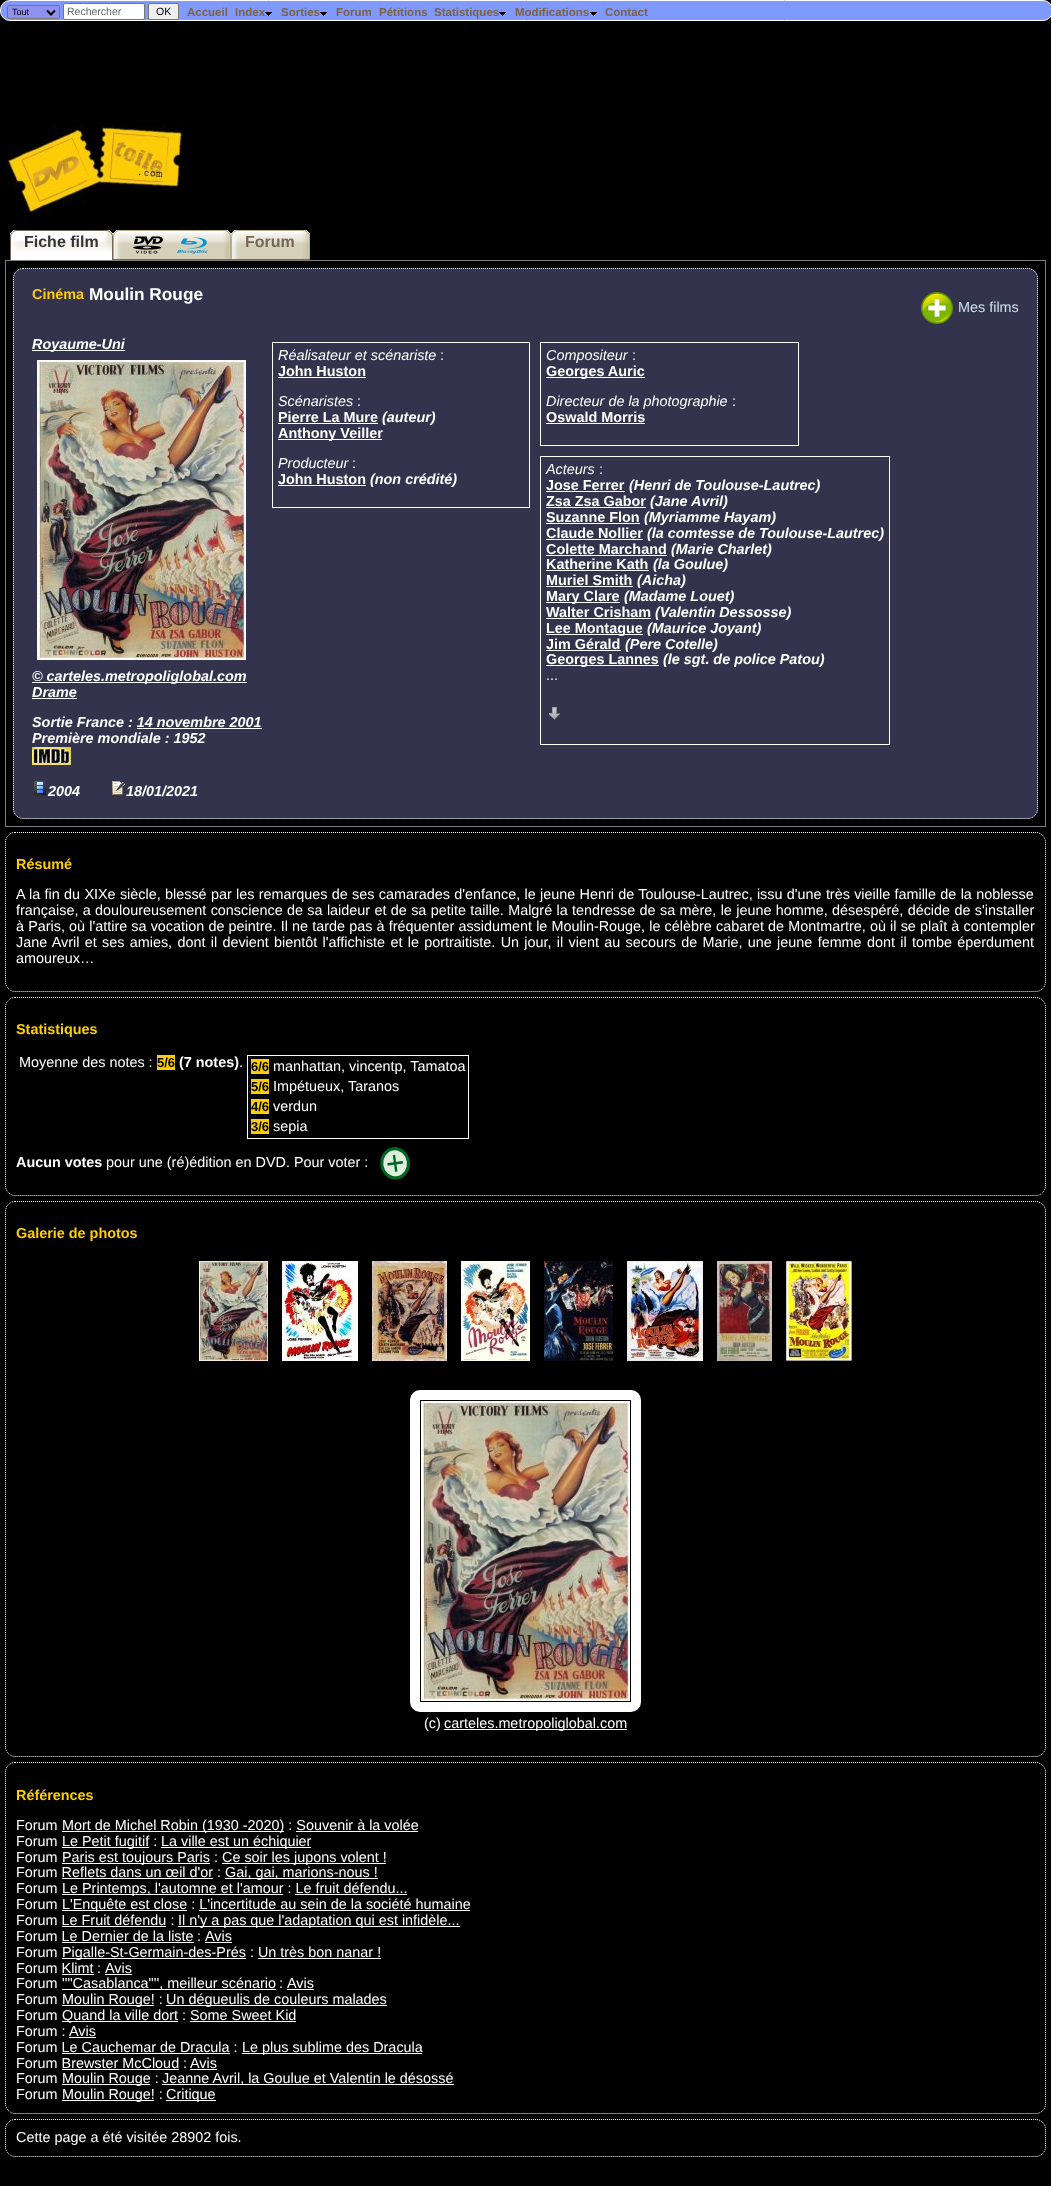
async function draw(canvas) {
  canvas.width = 1051;
  canvas.height = 2186;
  const ctx = canvas.getContext('2d');
  ctx.miterLimit = 4;
  ctx.fontKerning = 'normal';
  function label(s, x, y, font, color) {
    ctx.font = font;
    ctx.fillStyle = color;
    ctx.fillText(s, x, y);
  }
  function rect(x, y, w, h, color) {
    ctx.fillStyle = color;
    ctx.fillRect(x, y, w, h);
  }
  function roundedRect(x, y, w, h, r, color) {
    ctx.fillStyle = color;
    ctx.beginPath();
    ctx.roundRect(x, y, w, h, r);
    ctx.fill();
  }
  async function image(src, x, y, w, h) {
    const img = new Image();
    img.src = src;
    await img.decode();
    ctx.drawImage(img, x, y, w, h);
  }
  let path;

  rect(0, 0, 1051, 2186, '#000');
  ctx.fillStyle = '#8099fe';
  ctx.beginPath();
  ctx.roundRect(0.5, 0.5, 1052, 20, 9.5);
  ctx.fill();
  ctx.strokeStyle = '#fff';
  ctx.stroke();
  ctx.fillStyle = '#9090ee';
  ctx.beginPath();
  ctx.roundRect(7.5, 5.5, 52, 13, 1.5);
  ctx.fill();
  ctx.strokeStyle = '#767676';
  ctx.stroke();
  path = new Path2D('M47 10.5L51 14.5L55 10.5');
  ctx.strokeStyle = '#000';
  ctx.lineWidth = 2;
  ctx.stroke(path);
  label('Tout', 12, 15, '9px Liberation Sans', '#000');
  ctx.fillStyle = '#fff';
  ctx.beginPath();
  ctx.roundRect(63.5, 3.5, 81, 16, 1.5);
  ctx.fill();
  ctx.strokeStyle = '#767676';
  ctx.lineWidth = 1;
  ctx.stroke();
  label('Rechercher', 67, 15, '10.5px Liberation Sans', '#666');
  ctx.fillStyle = '#efefef';
  ctx.beginPath();
  ctx.roundRect(148.5, 3.5, 30, 16, 1.5);
  ctx.fill();
  ctx.stroke();
  label('OK', 156, 15, '10.5px Liberation Sans', '#000');
  label('Accueil', 187, 16, 'bold 11.5px Liberation Sans', '#7c6240');
  label('Index', 235, 16, 'bold 11.5px Liberation Sans', '#7c6240');
  await image('assets/img1.png', 265, 12, 7, 4);
  label('Sorties', 281, 16, 'bold 11.5px Liberation Sans', '#7c6240');
  await image('assets/img1.png', 320, 12, 7, 4);
  label('Forum', 336, 16, 'bold 11.5px Liberation Sans', '#7c6240');
  label('Pétitions', 379, 16, 'bold 11.5px Liberation Sans', '#7c6240');
  label('Statistiques', 434, 16, 'bold 11.5px Liberation Sans', '#7c6240');
  await image('assets/img1.png', 499, 12, 7, 4);
  label('Modifications', 515, 16, 'bold 11.5px Liberation Sans', '#7c6240');
  await image('assets/img1.png', 590, 12, 7, 4);
  label('Contact', 605, 16, 'bold 11.5px Liberation Sans', '#7c6240');
  await image('assets/img2.png', 5, 125, 178, 90);
  await image('assets/img3.png', 10, 230, 9, 30);
  await image('assets/img4.png', 19, 230, 94, 30);
  label('Fiche film', 24, 247, 'bold 16px Liberation Sans', '#333');
  await image('assets/img5.png', 113, 230, 9, 29);
  rect(113, 259, 197, 1, '#765');
  await image('assets/img6.png', 122, 230, 109, 29);
  await image('assets/img7.png', 133, 236, 30, 18);
  await image('assets/img8.png', 177, 237, 31, 17);
  await image('assets/img5.png', 231, 230, 9, 29);
  await image('assets/img9.png', 240, 230, 70, 29);
  label('Forum', 245, 247, 'bold 16px Liberation Sans', '#765');
  ctx.strokeStyle = '#808080';
  ctx.strokeRect(5.5, 260.5, 1040, 566);
  roundedRect(13, 268, 1025, 551, 10, '#33334d');
  path = new Path2D('M23 268.5H1028C1033 268.5 1037.5 273 1037.5 278V809C1037.5 814 1033 818.5 1028 818.5H23C18 818.5 13.5 814 13.5 809V278C13.5 273 18 268.5 23 268.5Z');
  ctx.strokeStyle = '#fff';
  ctx.setLineDash([1, 1]);
  ctx.stroke(path);
  label('Cinéma', 32, 299, 'bold 14.4px Liberation Sans', '#fecd07');
  label('Moulin Rouge', 89, 300, 'bold 17.25px Liberation Sans', '#fff');
  await image('assets/img10.png', 921, 292, 32, 32);
  label('Mes films', 958, 312, '14.4px Liberation Sans', '#cbe2ea');
  rect(32, 350, 93, 1, '#fff');
  label('Royaume-Uni', 32, 349, 'italic bold 14.4px Liberation Sans', '#fff');
  await image('assets/img11.png', 37, 360, 209, 300);
  rect(32, 682, 215, 1, '#fff');
  label('© carteles.metropoliglobal.com', 32, 681, 'italic bold 14.4px Liberation Sans', '#fff');
  label('Drame', 32, 697, 'italic bold 14.4px Liberation Sans', '#fff');
  rect(32, 698, 45, 1, '#fff');
  label('Sortie France : 14 novembre 2001', 32, 727, 'italic bold 14.4px Liberation Sans', '#fff');
  rect(137, 728, 125, 1, '#fff');
  label('Première mondiale : 1952', 32, 743, 'italic bold 14.4px Liberation Sans', '#fff');
  await image('assets/img12.png', 32, 747, 39, 18);
  await image('assets/img13.png', 34, 781, 12, 14);
  label('2004', 48, 796, 'italic bold 14.4px Liberation Sans', '#fff');
  await image('assets/img14.png', 112, 781, 13, 14);
  label('18/01/2021', 126, 796, 'italic bold 14.4px Liberation Sans', '#fff');
  ctx.setLineDash([]);
  ctx.strokeRect(272.5, 342.5, 257, 165);
  label('Réalisateur et scénariste', 278, 360, 'italic 14.4px Liberation Sans', '#fff');
  label(':', 440, 360, '14.4px Liberation Sans', '#fff');
  label('John Huston', 278, 376, 'bold 14.4px Liberation Sans', '#fff');
  rect(278, 377, 88, 1, '#fff');
  label('Scénaristes', 278, 406, 'italic 14.4px Liberation Sans', '#fff');
  label(':', 357, 406, '14.4px Liberation Sans', '#fff');
  label('Pierre La Mure', 278, 422, 'bold 14.4px Liberation Sans', '#fff');
  rect(278, 423, 100, 1, '#fff');
  label('(auteur)', 382, 422, 'italic bold 14.4px Liberation Sans', '#fff');
  rect(278, 439, 104, 1, '#fff');
  label('Anthony Veiller', 278, 438, 'bold 14.4px Liberation Sans', '#fff');
  label('Producteur', 278, 468, 'italic 14.4px Liberation Sans', '#fff');
  label(':', 352, 468, '14.4px Liberation Sans', '#fff');
  label('John Huston', 278, 484, 'bold 14.4px Liberation Sans', '#fff');
  rect(278, 485, 88, 1, '#fff');
  label('(non crédité)', 370, 484, 'italic bold 14.4px Liberation Sans', '#fff');
  ctx.strokeRect(540.5, 342.5, 258, 103);
  label('Compositeur', 546, 360, 'italic 14.4px Liberation Sans', '#fff');
  label(':', 632, 360, '14.4px Liberation Sans', '#fff');
  rect(546, 377, 99, 1, '#fff');
  label('Georges Auric', 546, 376, 'bold 14.4px Liberation Sans', '#fff');
  label('Directeur de la photographie', 546, 406, 'italic 14.4px Liberation Sans', '#fff');
  label(':', 732, 406, '14.4px Liberation Sans', '#fff');
  label('Oswald Morris', 546, 422, 'bold 14.4px Liberation Sans', '#fff');
  rect(546, 423, 99, 1, '#fff');
  ctx.strokeRect(540.5, 456.5, 349, 288);
  label('Acteurs', 546, 474, 'italic 14.4px Liberation Sans', '#fff');
  label(':', 599, 474, '14.4px Liberation Sans', '#fff');
  label('Jose Ferrer', 546, 490, 'bold 14.4px Liberation Sans', '#fff');
  rect(546, 491, 79, 1, '#fff');
  label('(Henri de Toulouse-Lautrec)', 629, 490, 'italic bold 14.4px Liberation Sans', '#fff');
  label('Zsa Zsa Gabor', 546, 506, 'bold 14.4px Liberation Sans', '#fff');
  rect(546, 507, 100, 1, '#fff');
  label('(Jane Avril)', 650, 506, 'italic bold 14.4px Liberation Sans', '#fff');
  label('Suzanne Flon', 546, 522, 'bold 14.4px Liberation Sans', '#fff');
  rect(546, 523, 94, 1, '#fff');
  label('(Myriamme Hayam)', 644, 522, 'italic bold 14.4px Liberation Sans', '#fff');
  label('Claude Nollier', 546, 538, 'bold 14.4px Liberation Sans', '#fff');
  rect(546, 539, 97, 1, '#fff');
  label('(la comtesse de Toulouse-Lautrec)', 647, 538, 'italic bold 14.4px Liberation Sans', '#fff');
  label('Colette Marchand', 546, 554, 'bold 14.4px Liberation Sans', '#fff');
  rect(546, 555, 121, 1, '#fff');
  label('(Marie Charlet)', 671, 554, 'italic bold 14.4px Liberation Sans', '#fff');
  label('Katherine Kath', 546, 569, 'bold 14.4px Liberation Sans', '#fff');
  rect(546, 570, 103, 1, '#fff');
  label('(la Goulue)', 653, 569, 'italic bold 14.4px Liberation Sans', '#fff');
  label('Muriel Smith', 546, 585, 'bold 14.4px Liberation Sans', '#fff');
  rect(546, 586, 87, 1, '#fff');
  label('(Aicha)', 637, 585, 'italic bold 14.4px Liberation Sans', '#fff');
  rect(546, 602, 74, 1, '#fff');
  label('Mary Clare', 546, 601, 'bold 14.4px Liberation Sans', '#fff');
  label('(Madame Louet)', 624, 601, 'italic bold 14.4px Liberation Sans', '#fff');
  label('Walter Crisham', 546, 617, 'bold 14.4px Liberation Sans', '#fff');
  rect(546, 618, 105, 1, '#fff');
  label('(Valentin Dessosse)', 655, 617, 'italic bold 14.4px Liberation Sans', '#fff');
  rect(546, 634, 97, 1, '#fff');
  label('Lee Montague', 546, 633, 'bold 14.4px Liberation Sans', '#fff');
  label('(Maurice Joyant)', 647, 633, 'italic bold 14.4px Liberation Sans', '#fff');
  label('Jim Gérald', 546, 649, 'bold 14.4px Liberation Sans', '#fff');
  rect(546, 650, 75, 1, '#fff');
  label('(Pere Cotelle)', 625, 649, 'italic bold 14.4px Liberation Sans', '#fff');
  rect(546, 665, 113, 1, '#fff');
  label('Georges Lannes', 546, 664, 'bold 14.4px Liberation Sans', '#fff');
  label('(le sgt. de police Patou)', 663, 664, 'italic bold 14.4px Liberation Sans', '#fff');
  label('...', 546, 680, '14.4px Liberation Sans', '#fff');
  await image('assets/img15.png', 549, 707, 11, 13);
  path = new Path2D('M15 832.5H1036C1041 832.5 1045.5 837 1045.5 842V982C1045.5 987 1041 991.5 1036 991.5H15C10 991.5 5.5 987 5.5 982V842C5.5 837 10 832.5 15 832.5Z');
  ctx.setLineDash([1, 1]);
  ctx.stroke(path);
  label('Résumé', 16, 869, 'bold 14.4px Liberation Sans', '#fecd07');
  ctx.wordSpacing = '0.3px';
  label('A la fin du XIXe siècle, blessé par les remarques de ses camarades d\'enfance, le jeune Henri de Toulouse-Lautrec, issu d\'une très vieille famille de la noblesse', 16, 899, '14.4px Liberation Sans', '#fff');
  ctx.wordSpacing = '0.35px';
  label('française, a douloureusement conscience de sa laideur et de sa petite taille. Malgré la tendresse de sa mère, le jeune homme, désespéré, décide de s\'installer', 16, 915, '14.4px Liberation Sans', '#fff');
  ctx.wordSpacing = '0.15px';
  label('à Paris, où l\'attire sa vocation de peintre. Il ne tarde pas à fréquenter assidument le Moulin-Rouge, le célèbre cabaret de Montmartre, où il se plaît à contempler', 16, 931, '14.4px Liberation Sans', '#fff');
  ctx.wordSpacing = '1.3px';
  label('Jane Avril et ses amies, dont il devient bientôt l\'affichiste et le portraitiste. Un jour, il vient au secours de Marie, une jeune femme dont il tombe éperdument', 16, 947, '14.4px Liberation Sans', '#fff');
  ctx.wordSpacing = '0px';
  label('amoureux…', 16, 963, '14.4px Liberation Sans', '#fff');
  path = new Path2D('M15 997.5H1036C1041 997.5 1045.5 1002 1045.5 1007V1186C1045.5 1191 1041 1195.5 1036 1195.5H15C10 1195.5 5.5 1191 5.5 1186V1007C5.5 1002 10 997.5 15 997.5Z');
  ctx.stroke(path);
  label('Statistiques', 16, 1034, 'bold 14.4px Liberation Sans', '#fecd07');
  label('Moyenne des notes :', 19, 1067, '14.4px Liberation Sans', '#fff');
  rect(157, 1055, 18, 15, '#fecd07');
  label('5/6', 157, 1067, 'bold 13px Liberation Sans', '#000');
  label('(7 notes)', 179, 1067, 'bold 14.4px Liberation Sans', '#fff');
  label('.', 239, 1067, '14.4px Liberation Sans', '#fff');
  ctx.setLineDash([]);
  ctx.strokeRect(247.5, 1055.5, 221, 83);
  rect(251, 1059, 18, 15, '#fecd07');
  label('6/6', 251, 1071, 'bold 13px Liberation Sans', '#000');
  label('manhattan, vincentp, Tamatoa', 273, 1071, '14.4px Liberation Sans', '#fff');
  rect(251, 1079, 18, 15, '#fecd07');
  label('5/6', 251, 1091, 'bold 13px Liberation Sans', '#000');
  label('Impétueux, Taranos', 273, 1091, '14.4px Liberation Sans', '#fff');
  rect(251, 1099, 18, 15, '#fecd07');
  label('4/6', 251, 1111, 'bold 13px Liberation Sans', '#000');
  label('verdun', 273, 1111, '14.4px Liberation Sans', '#fff');
  rect(251, 1119, 18, 15, '#fecd07');
  label('3/6', 251, 1131, 'bold 13px Liberation Sans', '#000');
  label('sepia', 273, 1131, '14.4px Liberation Sans', '#fff');
  label('Aucun votes', 16, 1167, 'bold 14.4px Liberation Sans', '#fff');
  label('pour une (ré)édition en DVD. Pour voter :', 106, 1167, '14.4px Liberation Sans', '#fff');
  await image('assets/img16.png', 380, 1147, 30, 33);
  path = new Path2D('M15 1201.5H1036C1041 1201.5 1045.5 1206 1045.5 1211V1747C1045.5 1752 1041 1756.5 1036 1756.5H15C10 1756.5 5.5 1752 5.5 1747V1211C5.5 1206 10 1201.5 15 1201.5Z');
  ctx.setLineDash([1, 1]);
  ctx.stroke(path);
  label('Galerie de photos', 16, 1238, 'bold 14.4px Liberation Sans', '#fecd07');
  await image('assets/img17.png', 199, 1261, 69, 100);
  await image('assets/img18.png', 282, 1261, 76, 100);
  await image('assets/img19.png', 372, 1261, 75, 100);
  await image('assets/img20.png', 461, 1261, 69, 100);
  await image('assets/img21.png', 544, 1261, 69, 100);
  await image('assets/img22.png', 627, 1261, 76, 100);
  await image('assets/img23.png', 717, 1261, 55, 100);
  await image('assets/img24.png', 786, 1261, 66, 100);
  ctx.beginPath();
  ctx.roundRect(415, 1395, 221, 312, 5);
  ctx.lineWidth = 10;
  ctx.setLineDash([]);
  ctx.stroke();
  await image('assets/img25.png', 421, 1401, 209, 300);
  label('(c)', 424, 1728, '14.4px Liberation Sans', '#fff');
  rect(444, 1729, 183, 1, '#fff');
  label('carteles.metropoliglobal.com', 444, 1728, '14.4px Liberation Sans', '#fff');
  path = new Path2D('M15 1762.5H1036C1041 1762.5 1045.5 1767 1045.5 1772V2104C1045.5 2109 1041 2113.5 1036 2113.5H15C10 2113.5 5.5 2109 5.5 2104V1772C5.5 1767 10 1762.5 15 1762.5Z');
  ctx.lineWidth = 1;
  ctx.setLineDash([1, 1]);
  ctx.stroke(path);
  label('Références', 16, 1800, 'bold 14.4px Liberation Sans', '#fecd07');
  label('Forum', 16, 1830, '14.4px Liberation Sans', '#fff');
  rect(62, 1831, 222, 1, '#fff');
  label('Mort de Michel Robin (1930 -2020) : Souvenir à la volée', 62, 1830, '14.4px Liberation Sans', '#fff');
  rect(296, 1831, 122, 1, '#fff');
  label('Forum', 16, 1846, '14.4px Liberation Sans', '#fff');
  rect(62, 1847, 87, 1, '#fff');
  label('Le Petit fugitif :', 62, 1846, '14.4px Liberation Sans', '#fff');
  rect(161, 1847, 150, 1, '#fff');
  label('La ville est un échiquier', 161, 1846, '14.4px Liberation Sans', '#fff');
  label('Forum', 16, 1862, '14.4px Liberation Sans', '#fff');
  rect(62, 1863, 148, 1, '#fff');
  label('Paris est toujours Paris :', 62, 1862, '14.4px Liberation Sans', '#fff');
  rect(222, 1863, 164, 1, '#fff');
  label('Ce soir les jupons volent !', 222, 1862, '14.4px Liberation Sans', '#fff');
  label('Forum Reflets dans un œil d\'or :', 16, 1877, '14.4px Liberation Sans', '#fff');
  rect(225, 1878, 153, 1, '#fff');
  label('Gai, gai, marions-nous !', 225, 1877, '14.4px Liberation Sans', '#fff');
  rect(62, 1878, 151, 1, '#fff');
  label('Forum', 16, 1893, '14.4px Liberation Sans', '#fff');
  rect(62, 1894, 221, 1, '#fff');
  label('Le Printemps, l\'automne et l\'amour : Le fruit défendu...', 62, 1893, '14.4px Liberation Sans', '#fff');
  rect(295, 1894, 112, 1, '#fff');
  label('Forum', 16, 1909, '14.4px Liberation Sans', '#fff');
  rect(62, 1910, 125, 1, '#fff');
  label('L\'Enquête est close : L\'incertitude au sein de la société humaine', 62, 1909, '14.4px Liberation Sans', '#fff');
  rect(199, 1910, 271, 1, '#fff');
  label('Forum Le Fruit défendu :', 16, 1925, '14.4px Liberation Sans', '#fff');
  rect(178, 1926, 282, 1, '#fff');
  label('Il n\'y a pas que l\'adaptation qui est infidèle...', 178, 1925, '14.4px Liberation Sans', '#fff');
  rect(62, 1926, 104, 1, '#fff');
  label('Forum Le Dernier de la liste', 16, 1941, '14.4px Liberation Sans', '#fff');
  label(':', 197, 1941, '14.4px Liberation Sans', '#fff');
  label('Avis', 205, 1941, '14.4px Liberation Sans', '#fff');
  rect(205, 1942, 27, 1, '#fff');
  rect(62, 1942, 132, 1, '#fff');
  label('Forum', 16, 1957, '14.4px Liberation Sans', '#fff');
  rect(62, 1958, 184, 1, '#fff');
  label('Pigalle-St-Germain-des-Prés : Un très bon nanar !', 62, 1957, '14.4px Liberation Sans', '#fff');
  rect(258, 1958, 123, 1, '#fff');
  label('Forum Klimt', 16, 1973, '14.4px Liberation Sans', '#fff');
  label(':', 97, 1973, '14.4px Liberation Sans', '#fff');
  label('Avis', 105, 1973, '14.4px Liberation Sans', '#fff');
  rect(105, 1974, 27, 1, '#fff');
  rect(62, 1974, 32, 1, '#fff');
  label('Forum', 16, 1988, '14.4px Liberation Sans', '#fff');
  rect(62, 1989, 214, 1, '#fff');
  label('\'\'"Casablanca"\'\', meilleur scénario', 62, 1988, '14.4px Liberation Sans', '#fff');
  label(':', 279, 1988, '14.4px Liberation Sans', '#fff');
  label('Avis', 287, 1988, '14.4px Liberation Sans', '#fff');
  rect(287, 1989, 27, 1, '#fff');
  label('Forum', 16, 2004, '14.4px Liberation Sans', '#fff');
  rect(62, 2005, 92, 1, '#fff');
  label('Moulin Rouge! :', 62, 2004, '14.4px Liberation Sans', '#fff');
  rect(166, 2005, 221, 1, '#fff');
  label('Un dégueulis de couleurs malades', 166, 2004, '14.4px Liberation Sans', '#fff');
  label('Forum', 16, 2020, '14.4px Liberation Sans', '#fff');
  rect(62, 2021, 116, 1, '#fff');
  label('Quand la ville dort : Some Sweet Kid', 62, 2020, '14.4px Liberation Sans', '#fff');
  rect(190, 2021, 106, 1, '#fff');
  label('Forum :', 16, 2036, '14.4px Liberation Sans', '#fff');
  label('Avis', 69, 2036, '14.4px Liberation Sans', '#fff');
  rect(69, 2037, 27, 1, '#fff');
  label('Forum Le Cauchemar de Dracula :', 16, 2052, '14.4px Liberation Sans', '#fff');
  rect(242, 2053, 180, 1, '#fff');
  label('Le plus sublime des Dracula', 242, 2052, '14.4px Liberation Sans', '#fff');
  rect(62, 2053, 168, 1, '#fff');
  label('Forum Brewster McCloud', 16, 2068, '14.4px Liberation Sans', '#fff');
  label(':', 183, 2068, '14.4px Liberation Sans', '#fff');
  label('Avis', 190, 2068, '14.4px Liberation Sans', '#fff');
  rect(190, 2069, 27, 1, '#fff');
  rect(62, 2069, 117, 1, '#fff');
  label('Forum', 16, 2083, '14.4px Liberation Sans', '#fff');
  rect(62, 2084, 88, 1, '#fff');
  label('Moulin Rouge :', 62, 2083, '14.4px Liberation Sans', '#fff');
  rect(162, 2084, 292, 1, '#fff');
  label('Jeanne Avril, la Goulue et Valentin le désossé', 162, 2083, '14.4px Liberation Sans', '#fff');
  label('Forum', 16, 2099, '14.4px Liberation Sans', '#fff');
  rect(62, 2100, 92, 1, '#fff');
  label('Moulin Rouge! :', 62, 2099, '14.4px Liberation Sans', '#fff');
  rect(166, 2100, 50, 1, '#fff');
  label('Critique', 166, 2099, '14.4px Liberation Sans', '#fff');
  path = new Path2D('M15 2119.5H1036C1041 2119.5 1045.5 2124 1045.5 2129V2147C1045.5 2152 1041 2156.5 1036 2156.5H15C10 2156.5 5.5 2152 5.5 2147V2129C5.5 2124 10 2119.5 15 2119.5Z');
  ctx.stroke(path);
  label('Cette page a été visitée 28902 fois.', 16, 2142, '14.4px Liberation Sans', '#fff');
}

draw(document.querySelector('canvas'));
